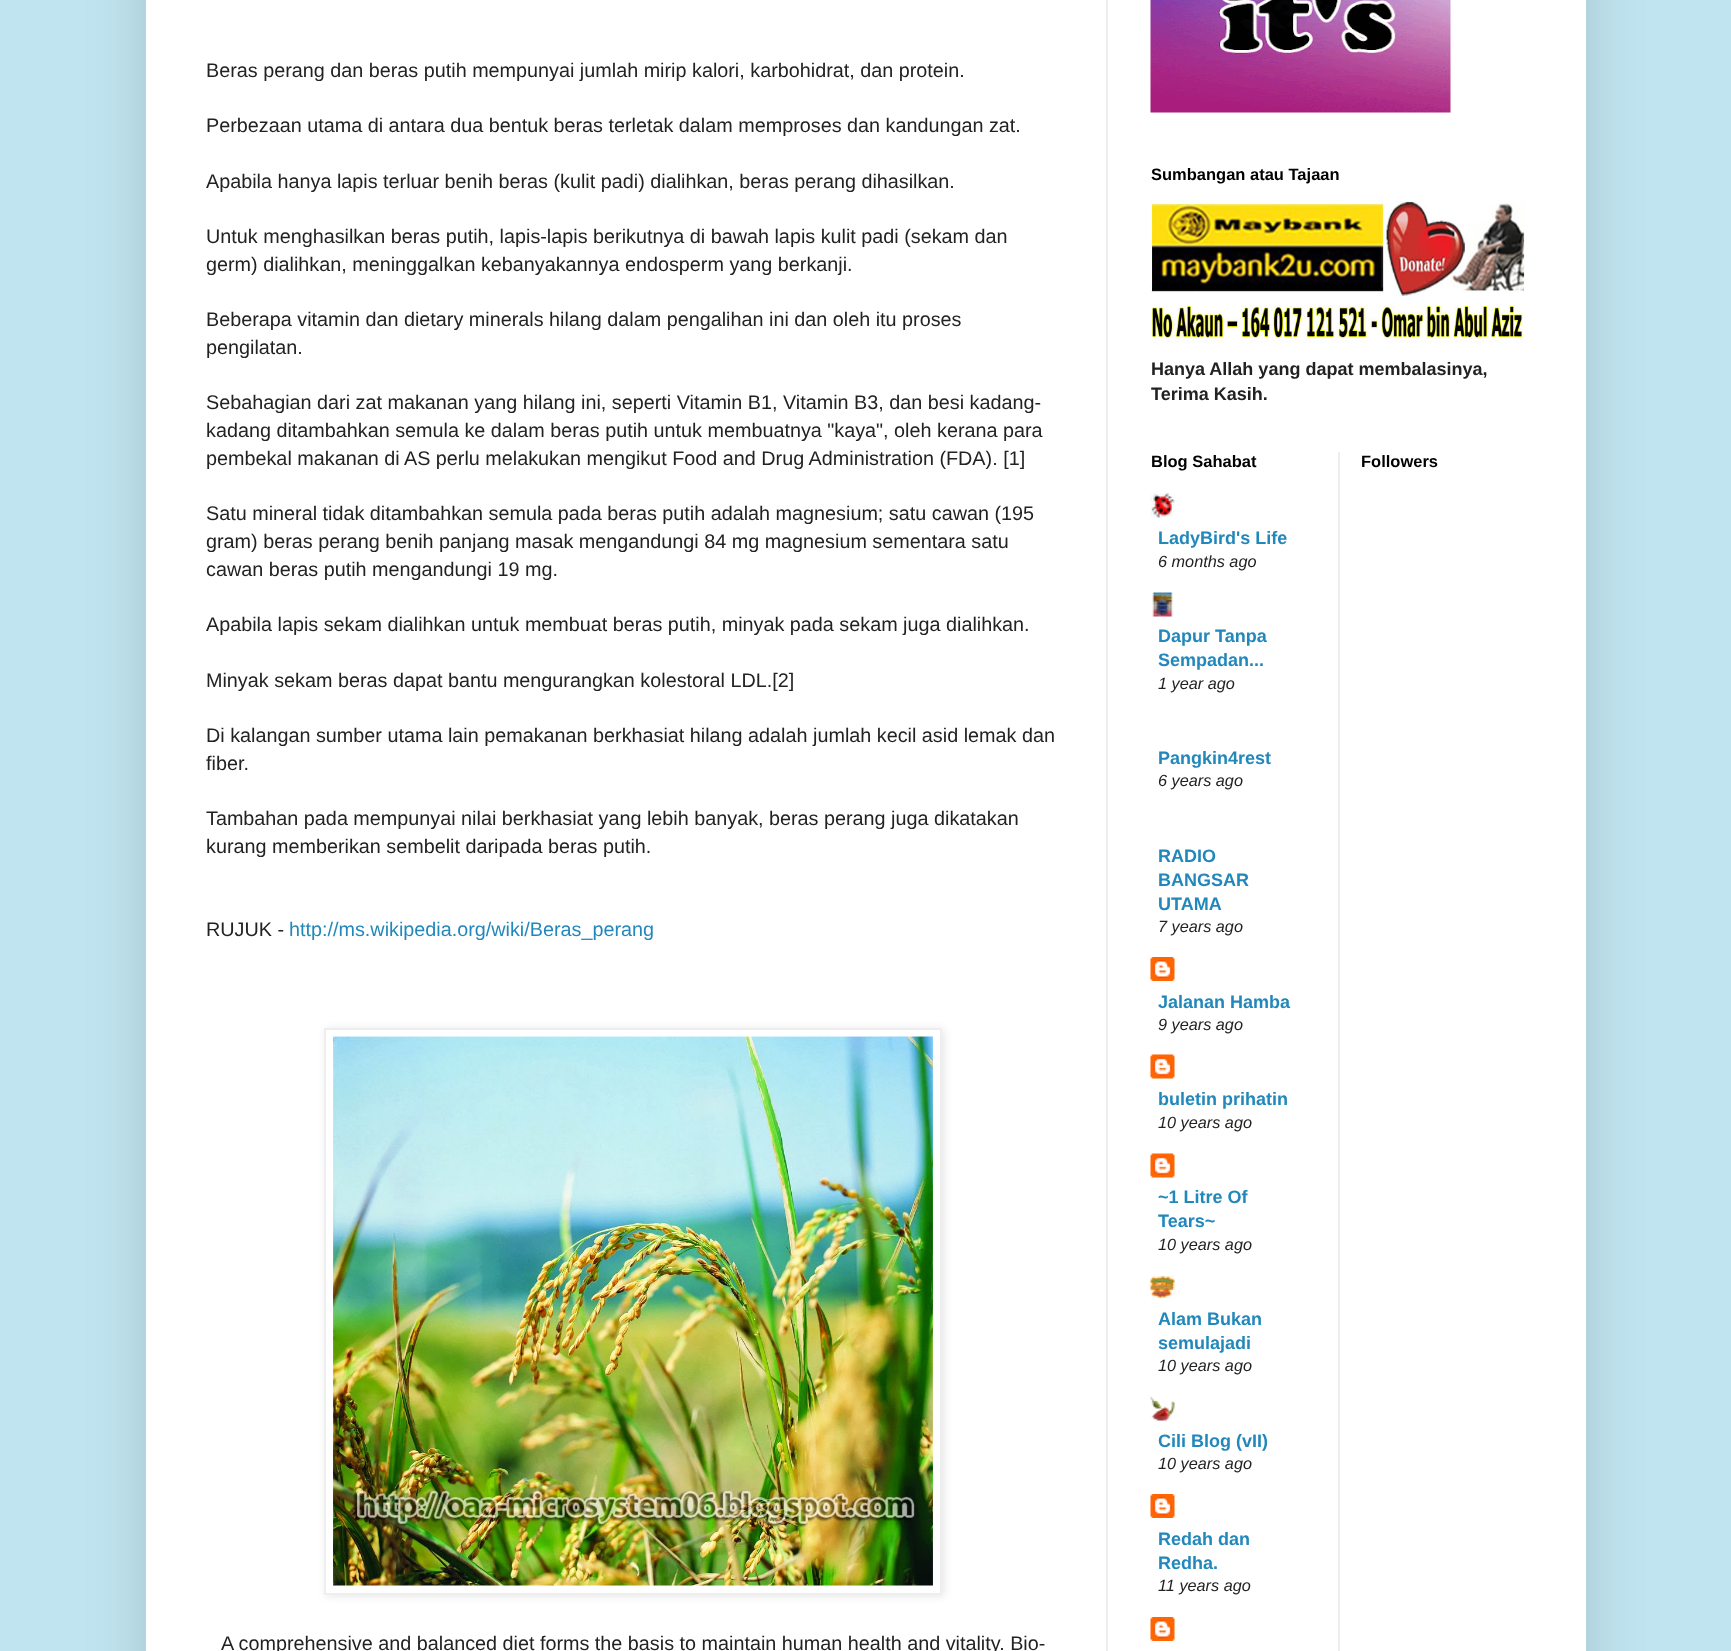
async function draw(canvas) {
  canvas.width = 1731;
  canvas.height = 1651;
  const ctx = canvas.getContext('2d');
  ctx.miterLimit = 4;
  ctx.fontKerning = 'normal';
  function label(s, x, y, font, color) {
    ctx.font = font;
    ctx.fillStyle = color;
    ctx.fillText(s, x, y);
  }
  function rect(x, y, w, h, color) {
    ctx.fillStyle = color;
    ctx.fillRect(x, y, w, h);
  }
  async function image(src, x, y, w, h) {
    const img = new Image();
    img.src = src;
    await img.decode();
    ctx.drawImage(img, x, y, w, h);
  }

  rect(0, 0, 1731, 1651, '#c1e5f0');
  ctx.fillStyle = '#00000026';
  ctx.filter = 'blur(30px)';
  ctx.beginPath();
  ctx.rect(146, -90, 1440, 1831);
  ctx.fill();
  ctx.filter = 'none';
  rect(146, 0, 1440, 1651, '#fff');
  rect(1106, 0, 2, 1651, '#eee');
  label('Beras perang dan beras putih mempunyai jumlah mirip kalori, karbohidrat, dan protein.', 206, 77, '19.8px Liberation Sans', '#222');
  label('Perbezaan utama di antara dua bentuk beras terletak dalam memproses dan kandungan zat.', 206, 132, '19.8px Liberation Sans', '#222');
  label('Apabila hanya lapis terluar benih beras (kulit padi) dialihkan, beras perang dihasilkan.', 206, 188, '19.8px Liberation Sans', '#222');
  label('Untuk menghasilkan beras putih, lapis-lapis berikutnya di bawah lapis kulit padi (sekam dan', 206, 243, '19.8px Liberation Sans', '#222');
  label('germ) dialihkan, meninggalkan kebanyakannya endosperm yang berkanji.', 206, 271, '19.8px Liberation Sans', '#222');
  label('Beberapa vitamin dan dietary minerals hilang dalam pengalihan ini dan oleh itu proses', 206, 326, '19.8px Liberation Sans', '#222');
  label('pengilatan.', 206, 354, '19.8px Liberation Sans', '#222');
  label('Sebahagian dari zat makanan yang hilang ini, seperti Vitamin B1, Vitamin B3, dan besi kadang-', 206, 409, '19.8px Liberation Sans', '#222');
  label('kadang ditambahkan semula ke dalam beras putih untuk membuatnya "kaya", oleh kerana para', 206, 437, '19.8px Liberation Sans', '#222');
  label('pembekal makanan di AS perlu melakukan mengikut Food and Drug Administration (FDA). [1]', 206, 465, '19.8px Liberation Sans', '#222');
  label('Satu mineral tidak ditambahkan semula pada beras putih adalah magnesium; satu cawan (195', 206, 520, '19.8px Liberation Sans', '#222');
  label('gram) beras perang benih panjang masak mengandungi 84 mg magnesium sementara satu', 206, 548, '19.8px Liberation Sans', '#222');
  label('cawan beras putih mengandungi 19 mg.', 206, 576, '19.8px Liberation Sans', '#222');
  label('Apabila lapis sekam dialihkan untuk membuat beras putih, minyak pada sekam juga dialihkan.', 206, 631, '19.8px Liberation Sans', '#222');
  label('Minyak sekam beras dapat bantu mengurangkan kolestoral LDL.[2]', 206, 687, '19.8px Liberation Sans', '#222');
  label('Di kalangan sumber utama lain pemakanan berkhasiat hilang adalah jumlah kecil asid lemak dan', 206, 742, '19.8px Liberation Sans', '#222');
  label('fiber.', 206, 770, '19.8px Liberation Sans', '#222');
  label('Tambahan pada mempunyai nilai berkhasiat yang lebih banyak, beras perang juga dikatakan', 206, 825, '19.8px Liberation Sans', '#222');
  label('kurang memberikan sembelit daripada beras putih.', 206, 853, '19.8px Liberation Sans', '#222');
  label('RUJUK -', 206, 936, '19.8px Liberation Sans', '#222');
  label('http://ms.wikipedia.org/wiki/Beras_perang', 289, 936, '19.8px Liberation Sans', '#28b');
  ctx.fillStyle = '#0000001a';
  ctx.filter = 'blur(4px)';
  ctx.beginPath();
  ctx.rect(326, 1029, 618, 567);
  ctx.fill();
  ctx.filter = 'none';
  ctx.fillStyle = '#fff';
  ctx.beginPath();
  ctx.rect(325, 1029, 616, 565);
  ctx.fill();
  ctx.strokeStyle = '#eee';
  ctx.lineWidth = 2;
  ctx.stroke();
  await image('assets/img1.png', 333, 1036, 600, 550);
  label('A comprehensive and balanced diet forms the basis to maintain human health and vitality. Bio-', 221, 1650, '19.8px Liberation Sans', '#222');
  await image('assets/img2.png', 1150, 0, 301, 113);
  label('Sumbangan atau Tajaan', 1151, 180, 'bold 16.5px Liberation Sans', '#000');
  await image('assets/img3.png', 1150, 199, 375, 144);
  label('Hanya Allah yang dapat membalasinya,', 1151, 375, 'bold 18px Liberation Sans', '#222');
  label('Terima Kasih.', 1151, 400, 'bold 18px Liberation Sans', '#222');
  label('Blog Sahabat', 1151, 467, 'bold 16.5px Liberation Sans', '#000');
  await image('assets/img4.png', 1150, 493, 25, 25);
  label('LadyBird\'s Life', 1158, 544, 'bold 18px Liberation Sans', '#28b');
  label('6 months ago', 1158, 567, 'italic 16.25px Liberation Sans', '#222');
  await image('assets/img5.png', 1152, 592, 22, 25);
  label('Dapur Tanpa', 1158, 642, 'bold 18px Liberation Sans', '#28b');
  label('Sempadan...', 1158, 666, 'bold 18px Liberation Sans', '#28b');
  label('1 year ago', 1158, 689, 'italic 16.25px Liberation Sans', '#222');
  label('Pangkin4rest', 1158, 764, 'bold 18px Liberation Sans', '#28b');
  label('6 years ago', 1158, 786, 'italic 16.25px Liberation Sans', '#222');
  label('RADIO', 1158, 862, 'bold 18px Liberation Sans', '#28b');
  label('BANGSAR', 1158, 886, 'bold 18px Liberation Sans', '#28b');
  label('UTAMA', 1158, 910, 'bold 18px Liberation Sans', '#28b');
  label('7 years ago', 1158, 932, 'italic 16.25px Liberation Sans', '#222');
  await image('assets/img6.png', 1150, 957, 25, 24);
  label('Jalanan Hamba', 1158, 1008, 'bold 18px Liberation Sans', '#28b');
  label('9 years ago', 1158, 1030, 'italic 16.25px Liberation Sans', '#222');
  await image('assets/img7.png', 1150, 1054, 25, 25);
  label('buletin prihatin', 1158, 1105, 'bold 18px Liberation Sans', '#28b');
  label('10 years ago', 1158, 1128, 'italic 16.25px Liberation Sans', '#222');
  await image('assets/img7.png', 1150, 1153, 25, 25);
  label('~1 Litre Of', 1158, 1203, 'bold 18px Liberation Sans', '#28b');
  label('Tears~', 1158, 1227, 'bold 18px Liberation Sans', '#28b');
  label('10 years ago', 1158, 1250, 'italic 16.25px Liberation Sans', '#222');
  await image('assets/img8.png', 1150, 1275, 25, 24);
  label('Alam Bukan', 1158, 1325, 'bold 18px Liberation Sans', '#28b');
  label('semulajadi', 1158, 1349, 'bold 18px Liberation Sans', '#28b');
  label('10 years ago', 1158, 1371, 'italic 16.25px Liberation Sans', '#222');
  await image('assets/img9.png', 1150, 1396, 25, 25);
  label('Cili Blog (vII)', 1158, 1447, 'bold 18px Liberation Sans', '#28b');
  label('10 years ago', 1158, 1469, 'italic 16.25px Liberation Sans', '#222');
  await image('assets/img6.png', 1150, 1494, 25, 24);
  label('Redah dan', 1158, 1545, 'bold 18px Liberation Sans', '#28b');
  label('Redha.', 1158, 1569, 'bold 18px Liberation Sans', '#28b');
  label('11 years ago', 1158, 1591, 'italic 16.25px Liberation Sans', '#222');
  await image('assets/img6.png', 1150, 1617, 25, 24);
  rect(1338, 452, 2, 1199, '#eee');
  label('Followers', 1361, 467, 'bold 16.5px Liberation Sans', '#000');
}

draw(document.querySelector('canvas'));
